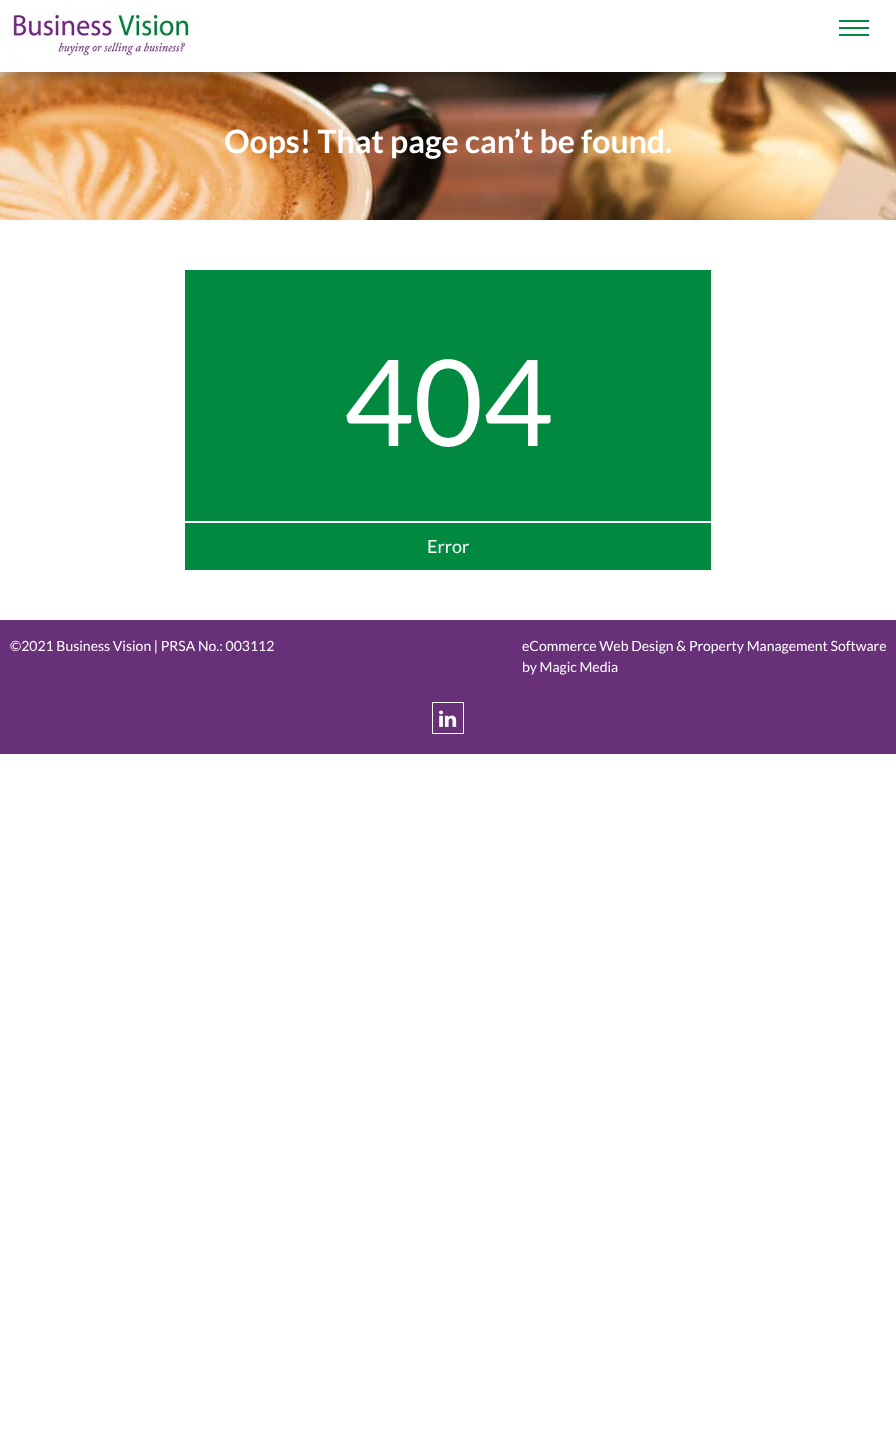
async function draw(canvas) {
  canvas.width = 896;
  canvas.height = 1456;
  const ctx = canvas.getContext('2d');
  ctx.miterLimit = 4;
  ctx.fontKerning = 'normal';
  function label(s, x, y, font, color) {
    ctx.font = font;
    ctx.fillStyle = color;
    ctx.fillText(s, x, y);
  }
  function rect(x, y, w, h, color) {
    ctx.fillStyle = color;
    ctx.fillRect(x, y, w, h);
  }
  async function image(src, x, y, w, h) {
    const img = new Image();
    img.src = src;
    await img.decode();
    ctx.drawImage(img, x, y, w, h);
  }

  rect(0, 0, 896, 1456, '#fff');
  await image('assets/img2.png', 0, 72, 896, 148);
  ctx.fillStyle = '#0000004d';
  ctx.filter = 'blur(5px)';
  ctx.beginPath();
  ctx.rect(0, 4, 896, 72);
  ctx.fill();
  ctx.filter = 'none';
  rect(0, 0, 896, 72, '#fff');
  await image('assets/img1.png', 10, 10, 184, 50);
  rect(839, 20, 30, 2, '#01893f');
  rect(839, 27, 30, 2, '#01893f');
  rect(839, 34, 30, 2, '#01893f');
  label('Oops! That page can’t be found.', 224, 153, 'bold 32px Lato', '#fff');
  rect(185, 270, 526, 300, '#01893f');
  label('404', 344, 446, '120px Lato', '#fff');
  rect(185, 521, 526, 2, '#fff');
  label('Error', 427, 553, '18px Lato', '#fff');
  rect(0, 620, 896, 134, '#683079');
  label('©2021 Business Vision | PRSA No.: 003112', 10, 651, '14px Lato', '#fff');
  label('eCommerce Web Design & Property Management Software', 522, 651, '14px Lato', '#fff');
  label('by Magic Media', 522, 672, '14px Lato', '#fff');
  ctx.strokeStyle = '#fff';
  ctx.strokeRect(432.5, 702.5, 31, 31);
  await image('assets/img3.png', 439, 710, 18, 17);
}

draw(document.querySelector('canvas'));
